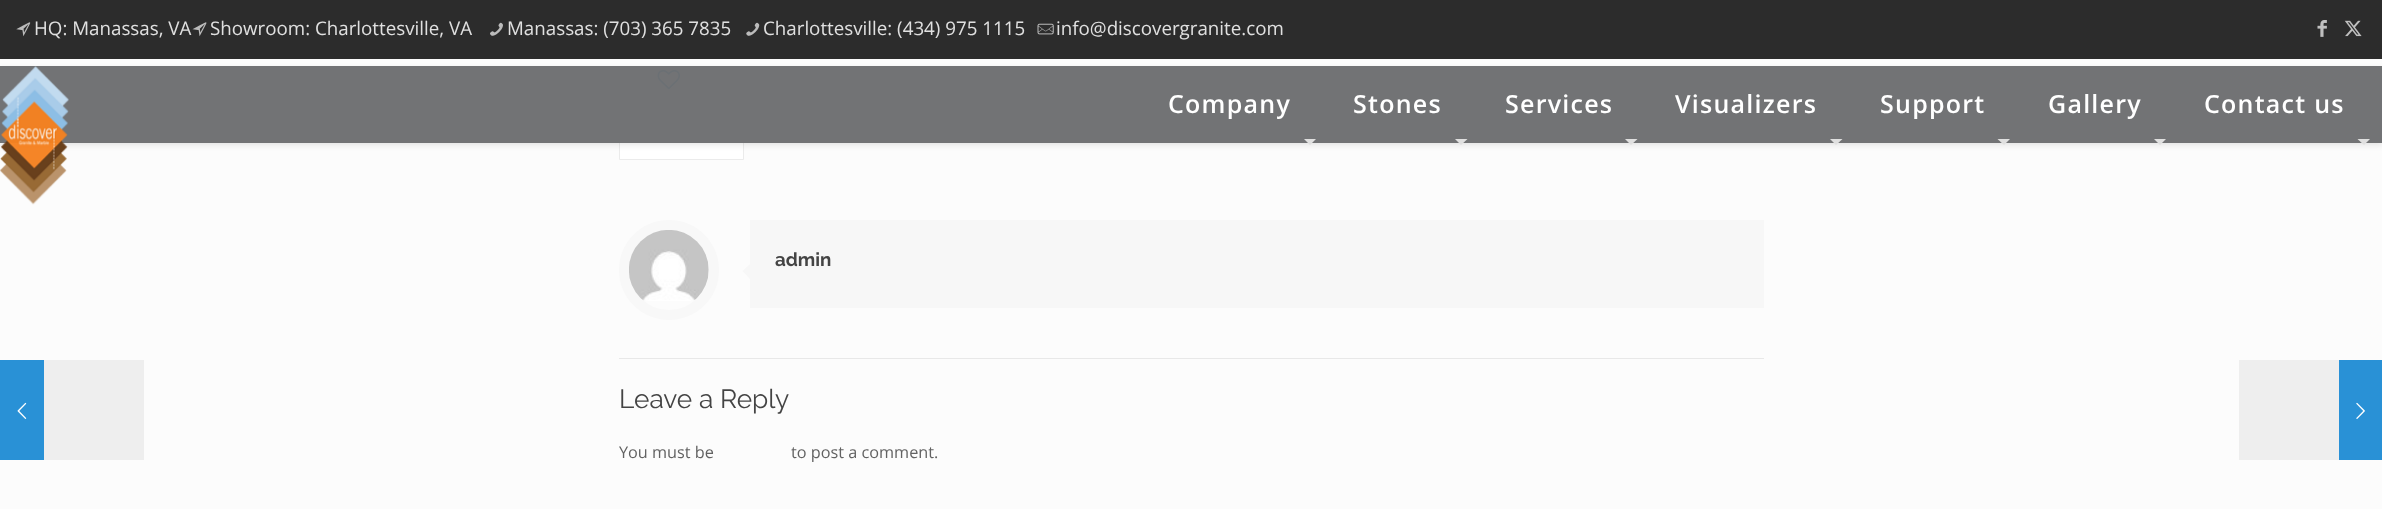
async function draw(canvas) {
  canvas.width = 2382;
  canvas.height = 509;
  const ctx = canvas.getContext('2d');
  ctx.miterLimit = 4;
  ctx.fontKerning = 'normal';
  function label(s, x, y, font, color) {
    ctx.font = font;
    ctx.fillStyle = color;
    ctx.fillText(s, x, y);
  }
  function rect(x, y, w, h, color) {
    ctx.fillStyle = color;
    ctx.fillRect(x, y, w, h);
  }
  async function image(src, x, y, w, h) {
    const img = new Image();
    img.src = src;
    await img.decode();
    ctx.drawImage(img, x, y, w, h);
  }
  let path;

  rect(0, 0, 2382, 509, '#fcfcfc');
  rect(0, 360, 44, 100, '#2991d6');
  await image('assets/img1.png', 17, 402, 10, 17);
  rect(0, 0, 2382, 59, '#2c2c2c');
  await image('assets/img2.png', 16, 22, 15, 15);
  label('HQ: Manassas, VA', 34, 35, '18.75px Open Sans', '#e0e0e0');
  await image('assets/img3.png', 192, 22, 15, 15);
  label('Showroom: Charlottesville, VA', 210, 35, '18.75px Open Sans', '#e0e0e0');
  await image('assets/img4.png', 490, 22, 13, 14);
  label('Manassas: (703) 365 7835', 507, 35, '18.75px Open Sans', '#e0e0e0');
  await image('assets/img5.png', 746, 22, 14, 14);
  label('Charlottesville: (434) 975 1115', 763, 35, '18.75px Open Sans', '#e0e0e0');
  await image('assets/img6.png', 1037, 23, 17, 12);
  label('info@discovergranite.com', 1056, 35, '18.75px Open Sans', '#e0e0e0');
  await image('assets/img7.png', 2317, 20, 10, 17);
  await image('assets/img8.png', 2344, 20, 18, 17);
  await image('assets/img10.png', 657, 70, 23, 20);
  ctx.fillStyle = '#fff';
  ctx.beginPath();
  ctx.rect(619.5, 139.5, 124, 20);
  ctx.fill();
  ctx.strokeStyle = '#ebebeb';
  ctx.stroke();
  ctx.save();
  path = new Path2D('M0 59H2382V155H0ZM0 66H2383V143H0Z');
  ctx.clip(path, 'evenodd');
  ctx.fillStyle = '#0000001a';
  ctx.filter = 'blur(3px)';
  ctx.beginPath();
  ctx.rect(0, 69, 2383, 76);
  ctx.fill();
  ctx.filter = 'none';
  ctx.restore();
  rect(0, 66, 2382, 77, '#6d6e71f7');
  await image('assets/img9.png', 0, 66, 69, 139);
  ctx.letterSpacing = '1.25px';
  label('Company', 1168, 113, '600 25px Open Sans', '#fff');
  ctx.fillStyle = '#e0e0e0';
  path = new Path2D('M1304 139H1316L1310 145Z');
  ctx.fill(path);
  label('Stones', 1353, 113, '600 25px Open Sans', '#fff');
  ctx.fillStyle = '#e0e0e0';
  path = new Path2D('M1455 139H1467.5L1461 145Z');
  ctx.fill(path);
  label('Services', 1505, 113, '600 25px Open Sans', '#fff');
  ctx.fillStyle = '#e0e0e0';
  path = new Path2D('M1625 139H1637.5L1631 145Z');
  ctx.fill(path);
  label('Visualizers', 1675, 113, '600 25px Open Sans', '#fff');
  ctx.fillStyle = '#e0e0e0';
  path = new Path2D('M1830 139H1842.5L1836 145Z');
  ctx.fill(path);
  label('Support', 1880, 113, '600 25px Open Sans', '#fff');
  ctx.fillStyle = '#e0e0e0';
  path = new Path2D('M1997.5 139H2010L2004 145Z');
  ctx.fill(path);
  label('Gallery', 2048, 113, '600 25px Open Sans', '#fff');
  ctx.fillStyle = '#e0e0e0';
  path = new Path2D('M2154 139H2166L2160 145Z');
  ctx.fill(path);
  label('Contact us', 2204, 113, '600 25px Open Sans', '#fff');
  ctx.fillStyle = '#e0e0e0';
  path = new Path2D('M2357.5 139H2370L2364 145Z');
  ctx.fill(path);
  ctx.beginPath();
  ctx.arc(669, 270, 45, 0, 2 * Math.PI);
  ctx.strokeStyle = '#f8f8f8';
  ctx.lineWidth = 10;
  ctx.stroke();
  await image('assets/img11.png', 629, 230, 80, 71);
  rect(750, 220, 1014, 88, '#f7f7f7');
  ctx.letterSpacing = '0px';
  label('admin', 775, 266, 'bold 18.75px Raleway', '#444');
  ctx.fillStyle = '#f7f7f7';
  path = new Path2D('M750 264V279L742.5 271Z');
  ctx.fill(path);
  rect(619, 358, 1145, 1, '#e8e8e8');
  label('Leave a Reply', 619, 408, '26.25px Raleway', '#444');
  label('You must be', 619, 458, '16.25px Open Sans', '#626262');
  label('to post a comment.', 791, 458, '16.25px Open Sans', '#626262');
  rect(44, 360, 100, 100, '#eee');
  rect(2239, 360, 100, 100, '#eee');
  rect(2339, 360, 43, 100, '#2991d6');
  await image('assets/img12.png', 2356, 402, 9, 17);
}

draw(document.querySelector('canvas'));
